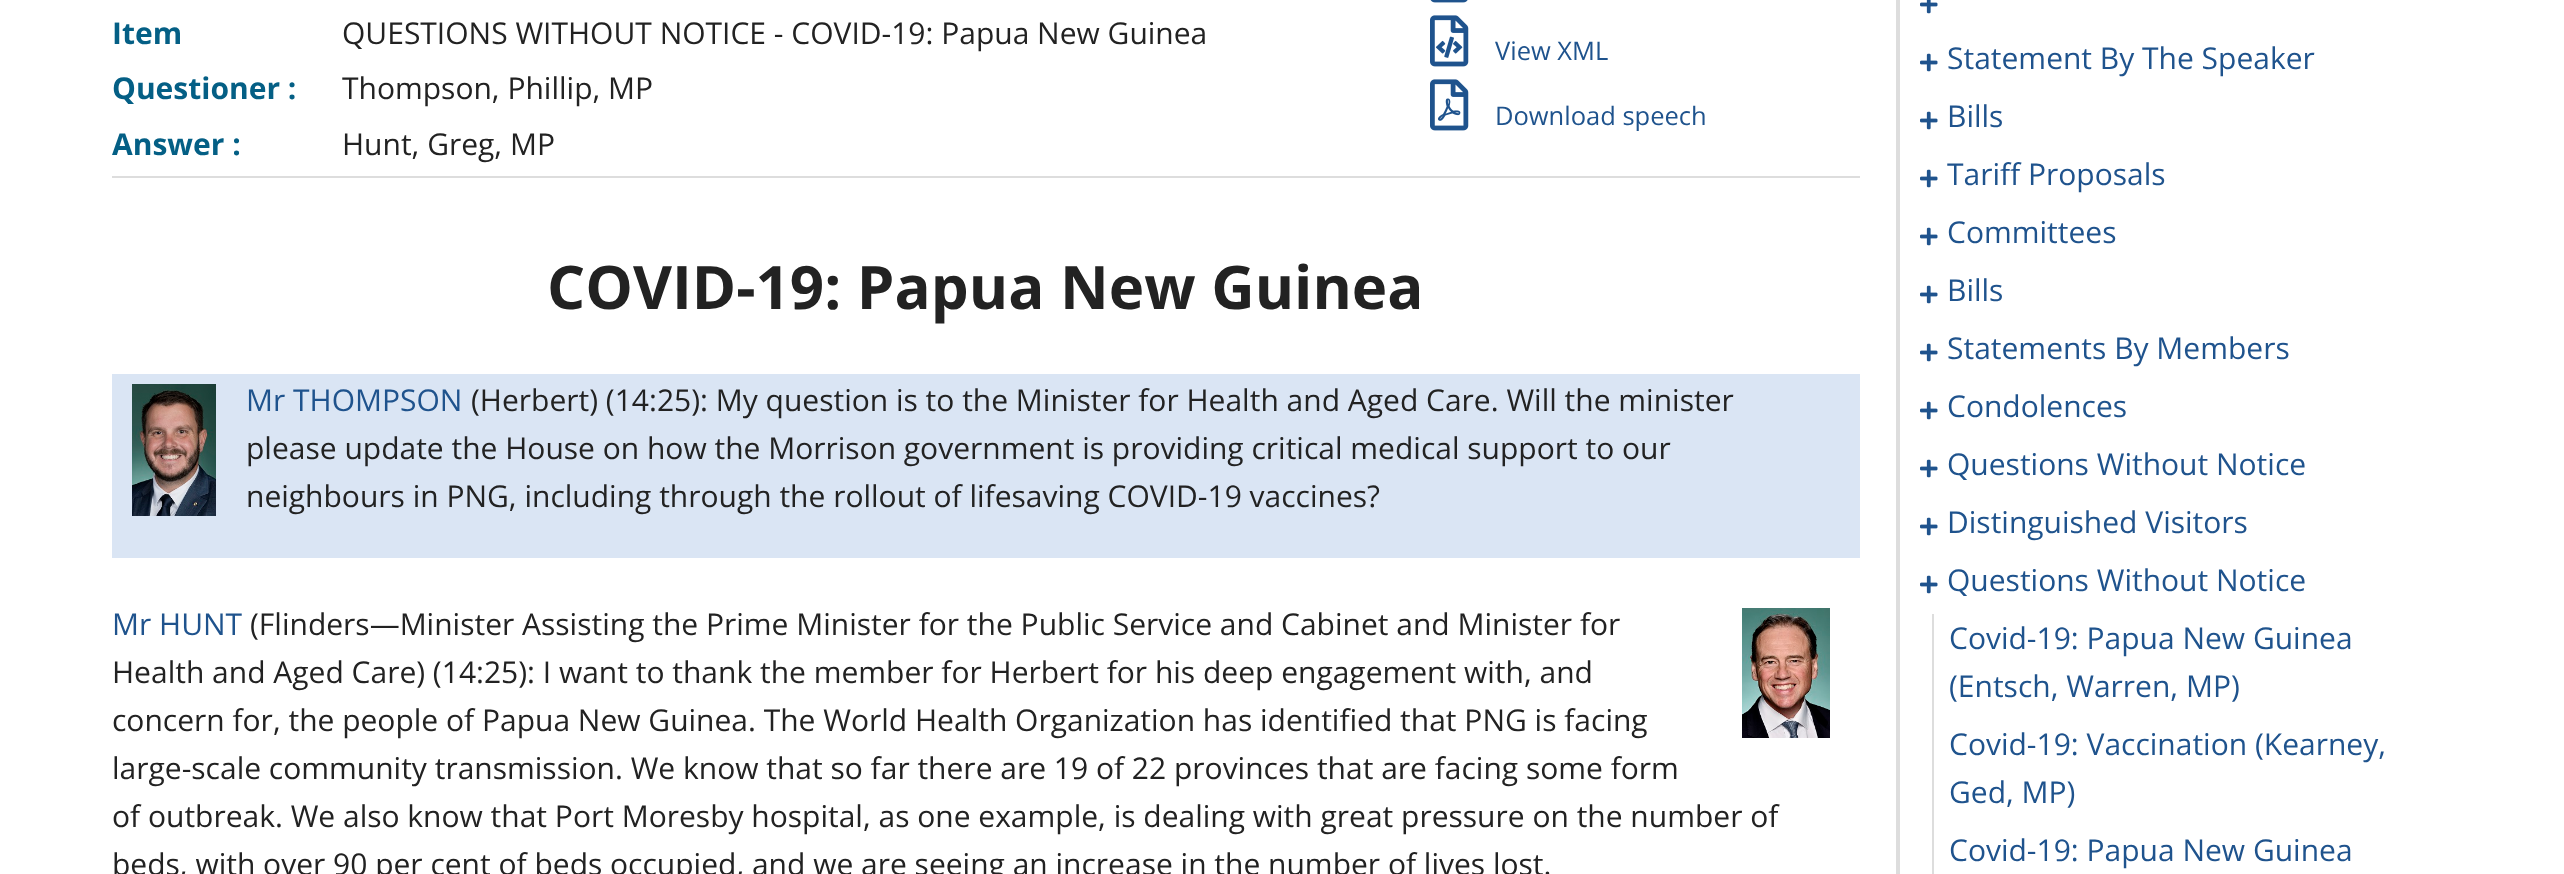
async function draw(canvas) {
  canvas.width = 2564;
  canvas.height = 874;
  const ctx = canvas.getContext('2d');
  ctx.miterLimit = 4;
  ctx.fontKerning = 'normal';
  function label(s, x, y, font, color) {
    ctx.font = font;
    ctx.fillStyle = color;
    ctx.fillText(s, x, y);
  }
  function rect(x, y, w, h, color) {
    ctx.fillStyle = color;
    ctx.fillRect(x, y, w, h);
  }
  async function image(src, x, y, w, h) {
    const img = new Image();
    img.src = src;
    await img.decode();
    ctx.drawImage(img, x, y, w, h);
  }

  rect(0, 0, 2564, 874, '#fff');
  label('Item', 112, 44, 'bold 30px Open Sans', '#045f85');
  label('QUESTIONS WITHOUT NOTICE - COVID-19: Papua New Guinea', 342, 44, '30px Open Sans', '#222');
  label('Questioner :', 112, 99, 'bold 30px Open Sans', '#045f85');
  label('Thompson, Phillip, MP', 342, 99, '30px Open Sans', '#222');
  label('Answer :', 112, 155, 'bold 30px Open Sans', '#045f85');
  label('Hunt, Greg, MP', 342, 155, '30px Open Sans', '#222');
  await image('assets/img1.png', 1430, 0, 38, 3);
  await image('assets/img2.png', 1430, 15, 39, 52);
  label('View XML', 1495, 60, '25.5px Open Sans', '#1f538d');
  await image('assets/img3.png', 1430, 79, 39, 52);
  label('Download speech', 1495, 125, '25.5px Open Sans', '#1f538d');
  rect(112, 176, 1748, 2, '#ddd');
  label('COVID-19: Papua New Guinea', 547, 309, 'bold 60px Open Sans', '#222');
  rect(112, 374, 1748, 184, '#dae5f4');
  await image('assets/img4.png', 132, 384, 84, 132);
  label('Mr THOMPSON', 246, 411, '30px Open Sans', '#1f538d');
  label('(Herbert) (14:25): My question is to the Minister for Health and Aged Care. Will the minister', 471, 411, '30px Open Sans', '#222');
  label('please update the House on how the Morrison government is providing critical medical support to our', 246, 459, '30px Open Sans', '#222');
  label('neighbours in PNG, including through the rollout of lifesaving COVID-19 vaccines?', 246, 507, '30px Open Sans', '#222');
  label('Mr HUNT', 112, 635, '30px Open Sans', '#1f538d');
  await image('assets/img5.png', 1742, 608, 88, 130);
  label('(Flinders—Minister Assisting the Prime Minister for the Public Service and Cabinet and Minister for', 250, 635, '30px Open Sans', '#222');
  label('Health and Aged Care) (14:25): I want to thank the member for Herbert for his deep engagement with, and', 112, 683, '30px Open Sans', '#222');
  label('concern for, the people of Papua New Guinea. The World Health Organization has identified that PNG is facing', 112, 731, '30px Open Sans', '#222');
  label('large-scale community transmission. We know that so far there are 19 of 22 provinces that are facing some form', 112, 779, '30px Open Sans', '#222');
  label('of outbreak. We also know that Port Moresby hospital, as one example, is dealing with great pressure on the number of', 112, 827, '30px Open Sans', '#222');
  label('beds, with over 90 per cent of beds occupied, and we are seeing an increase in the number of lives lost.', 112, 875, '30px Open Sans', '#222');
  rect(1896, 0, 4, 874, '#ddd');
  await image('assets/img6.png', 1920, 0, 18, 14);
  await image('assets/img7.png', 1920, 53, 18, 19);
  label('Statement By The Speaker', 1947, 69, '30px Open Sans', '#1f538d');
  await image('assets/img7.png', 1920, 111, 18, 19);
  label('Bills', 1947, 127, '30px Open Sans', '#1f538d');
  await image('assets/img7.png', 1920, 169, 18, 19);
  label('Tariff Proposals', 1947, 185, '30px Open Sans', '#1f538d');
  await image('assets/img7.png', 1920, 227, 18, 19);
  label('Committees', 1947, 243, '30px Open Sans', '#1f538d');
  await image('assets/img7.png', 1920, 285, 18, 19);
  label('Bills', 1947, 301, '30px Open Sans', '#1f538d');
  await image('assets/img7.png', 1920, 343, 18, 19);
  label('Statements By Members', 1947, 359, '30px Open Sans', '#1f538d');
  await image('assets/img7.png', 1920, 401, 18, 19);
  label('Condolences', 1947, 417, '30px Open Sans', '#1f538d');
  await image('assets/img7.png', 1920, 459, 18, 19);
  label('Questions Without Notice', 1947, 475, '30px Open Sans', '#1f538d');
  await image('assets/img7.png', 1920, 517, 18, 19);
  label('Distinguished Visitors', 1947, 533, '30px Open Sans', '#1f538d');
  await image('assets/img7.png', 1920, 575, 18, 19);
  label('Questions Without Notice', 1947, 591, '30px Open Sans', '#1f538d');
  rect(1932, 614, 2, 260, '#ddd');
  label('Covid-19: Papua New Guinea', 1949, 649, '30px Open Sans', '#1f538d');
  label('(Entsch, Warren, MP)', 1949, 697, '30px Open Sans', '#1f538d');
  label('Covid-19: Vaccination (Kearney,', 1949, 755, '30px Open Sans', '#1f538d');
  label('Ged, MP)', 1949, 803, '30px Open Sans', '#1f538d');
  label('Covid-19: Papua New Guinea', 1949, 861, '30px Open Sans', '#1f538d');
}

draw(document.querySelector('canvas'));
